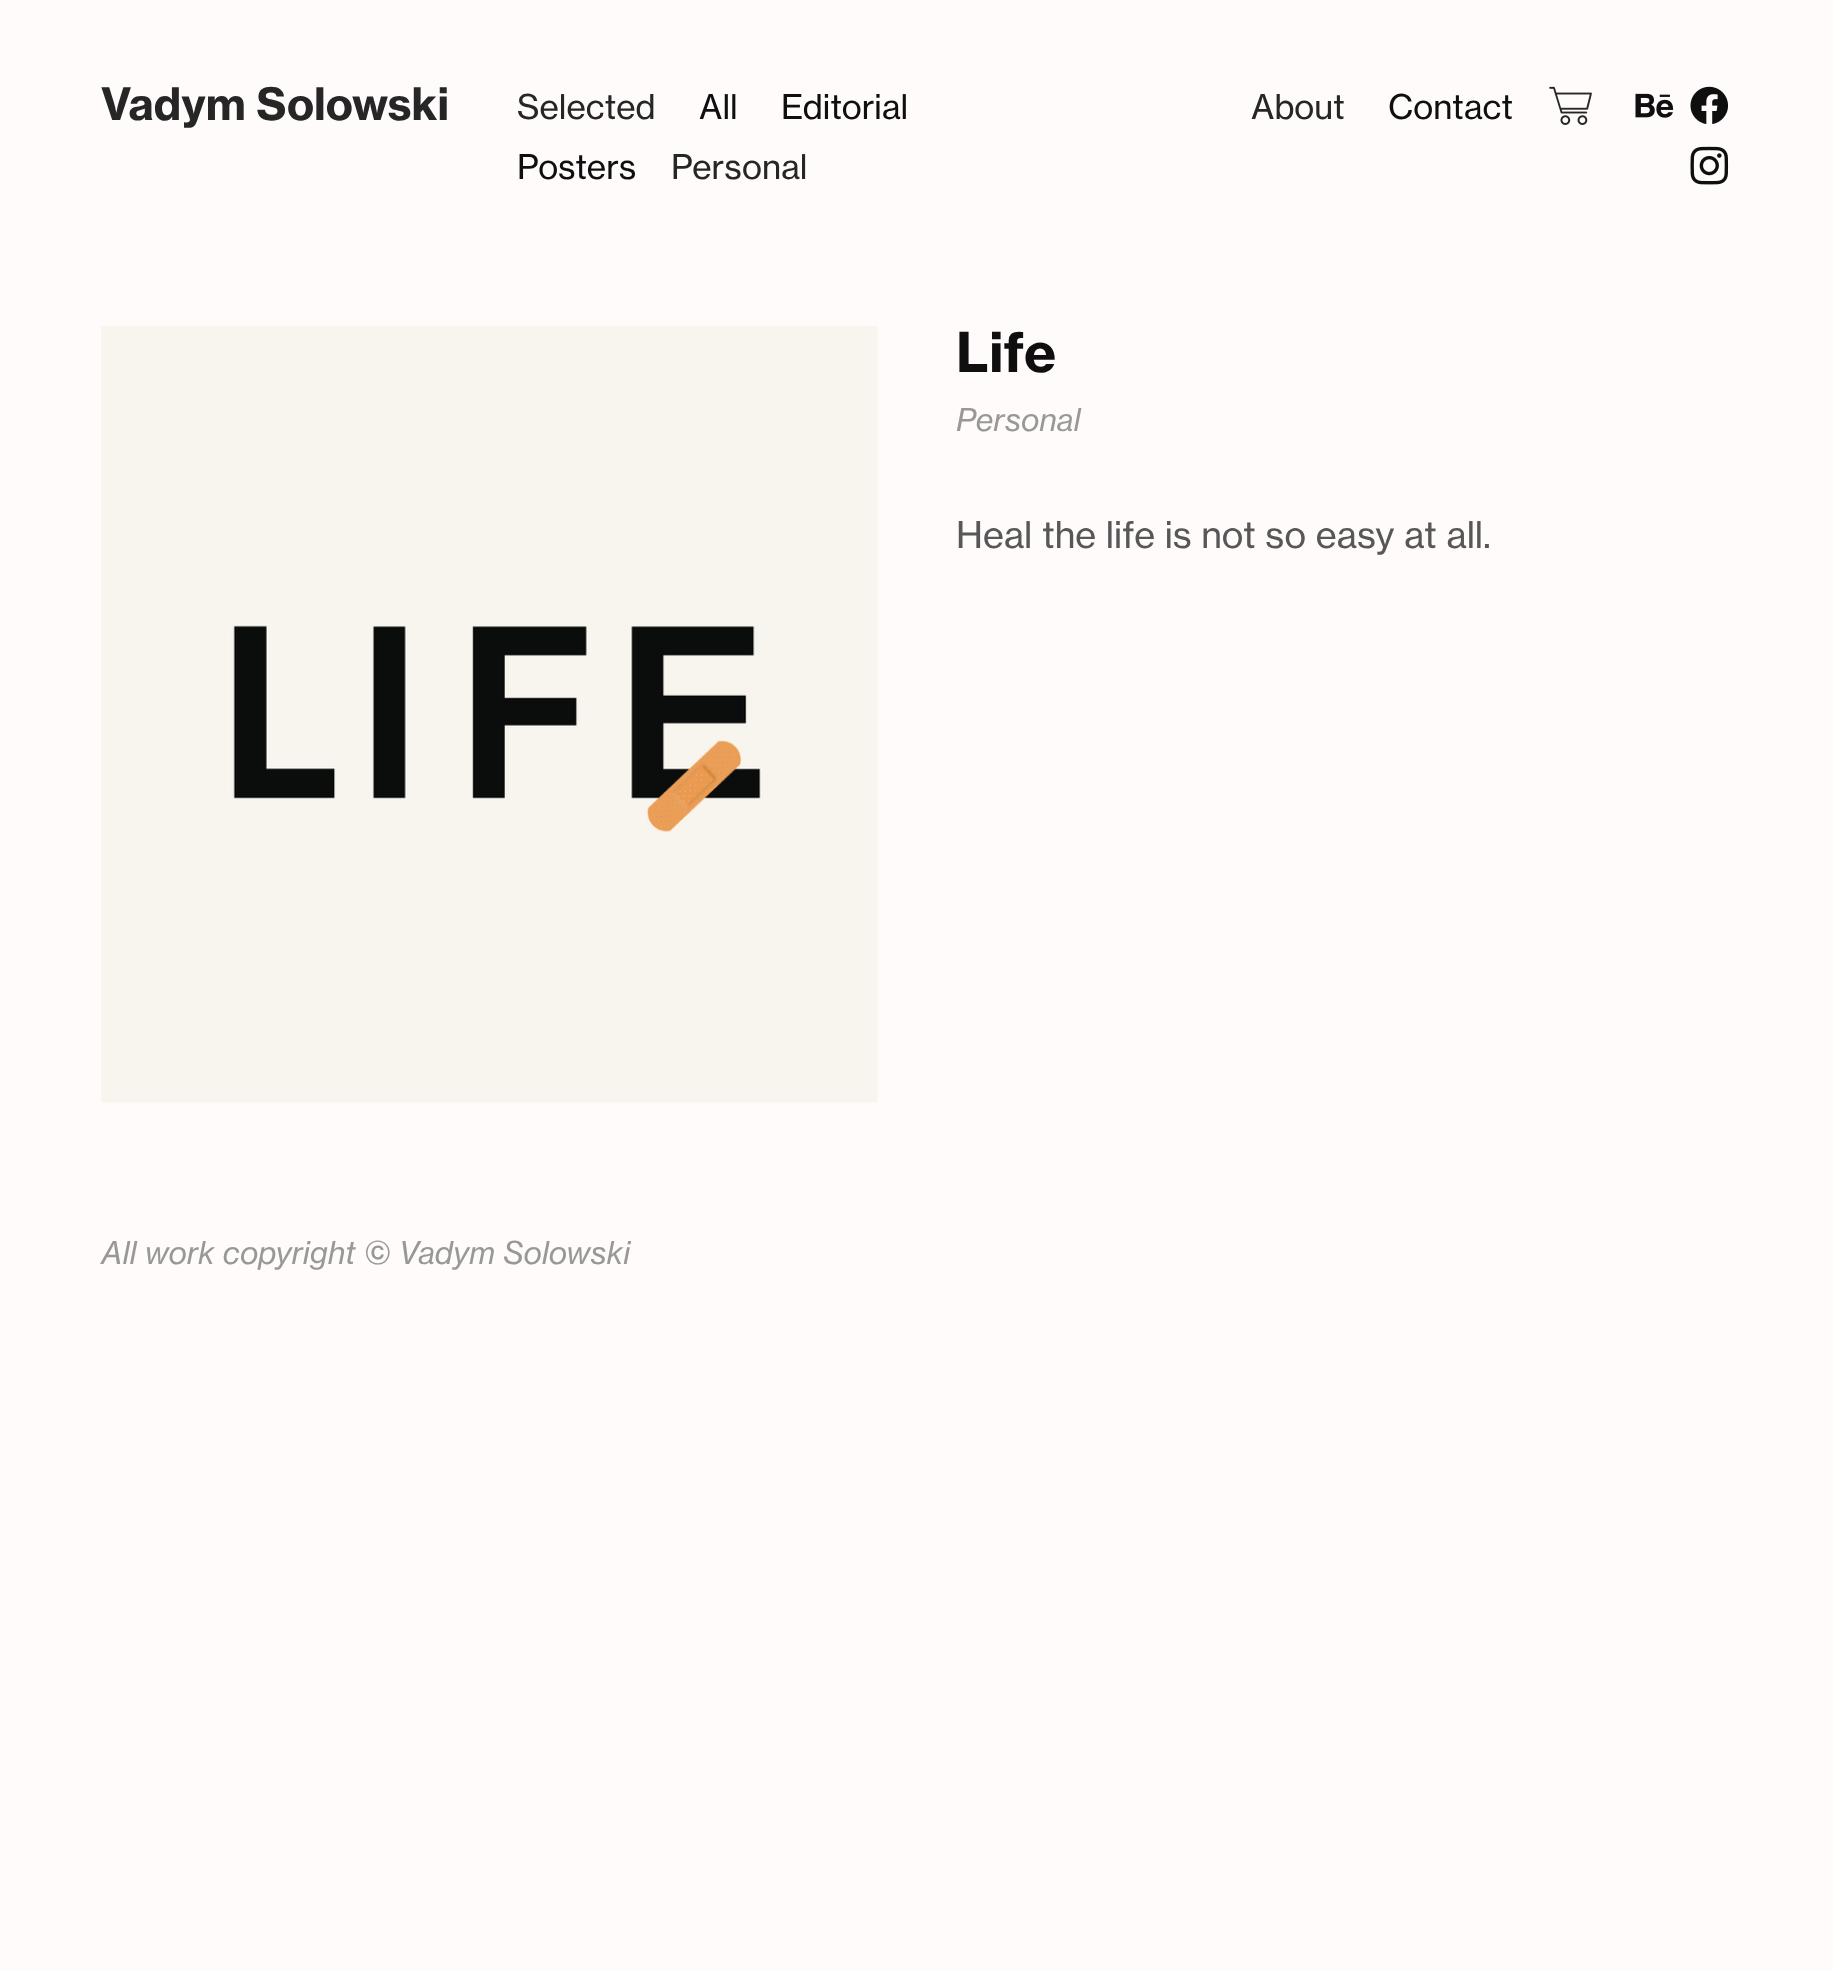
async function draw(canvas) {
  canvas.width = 1833;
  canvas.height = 1971;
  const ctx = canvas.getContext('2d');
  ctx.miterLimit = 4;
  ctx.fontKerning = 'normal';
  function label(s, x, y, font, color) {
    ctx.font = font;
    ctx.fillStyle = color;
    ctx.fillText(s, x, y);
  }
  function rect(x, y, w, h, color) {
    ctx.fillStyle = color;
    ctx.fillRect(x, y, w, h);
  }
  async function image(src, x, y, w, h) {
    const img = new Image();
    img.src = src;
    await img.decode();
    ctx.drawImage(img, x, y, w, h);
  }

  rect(0, 0, 1833, 1971, '#fffbfb');
  label('Vadym Solowski', 101, 120, 'bold 44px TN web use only', '#262626');
  label('Selected', 517, 119, '33.5px TN web use only', '#262626');
  label('All', 699, 119, '33.5px TN web use only', '#100f0f');
  label('Editorial', 781, 119, '33.5px TN web use only', '#100f0f');
  label('Posters', 517, 179, '33.5px TN web use only', '#100f0f');
  label('Personal', 671, 179, '33.5px TN web use only', '#262626');
  label('About', 1251, 119, '33.5px TN web use only', '#262626');
  label('Contact', 1388, 119, '33.5px TN web use only', '#100f0f');
  await image('assets/img1.png', 1549, 86, 43, 39);
  await image('assets/img2.png', 1635, 93, 39, 25);
  await image('assets/img3.png', 1690, 86, 39, 39);
  await image('assets/img4.png', 1690, 146, 39, 39);
  await image('assets/img5.png', 101, 326, 777, 777);
  label('Life', 956, 372, 'bold 54px TN web use only', '#100f0f');
  label('Personal', 956, 431, 'italic 31px TN web use only', '#999797');
  label('Heal the life is not so easy at all.', 956, 548, '36.2px TN web use only', '#585656');
  label('All work copyright © Vadym Solowski', 101, 1264, 'italic 31px TN web use only', '#999797');
}

draw(document.querySelector('canvas'));
